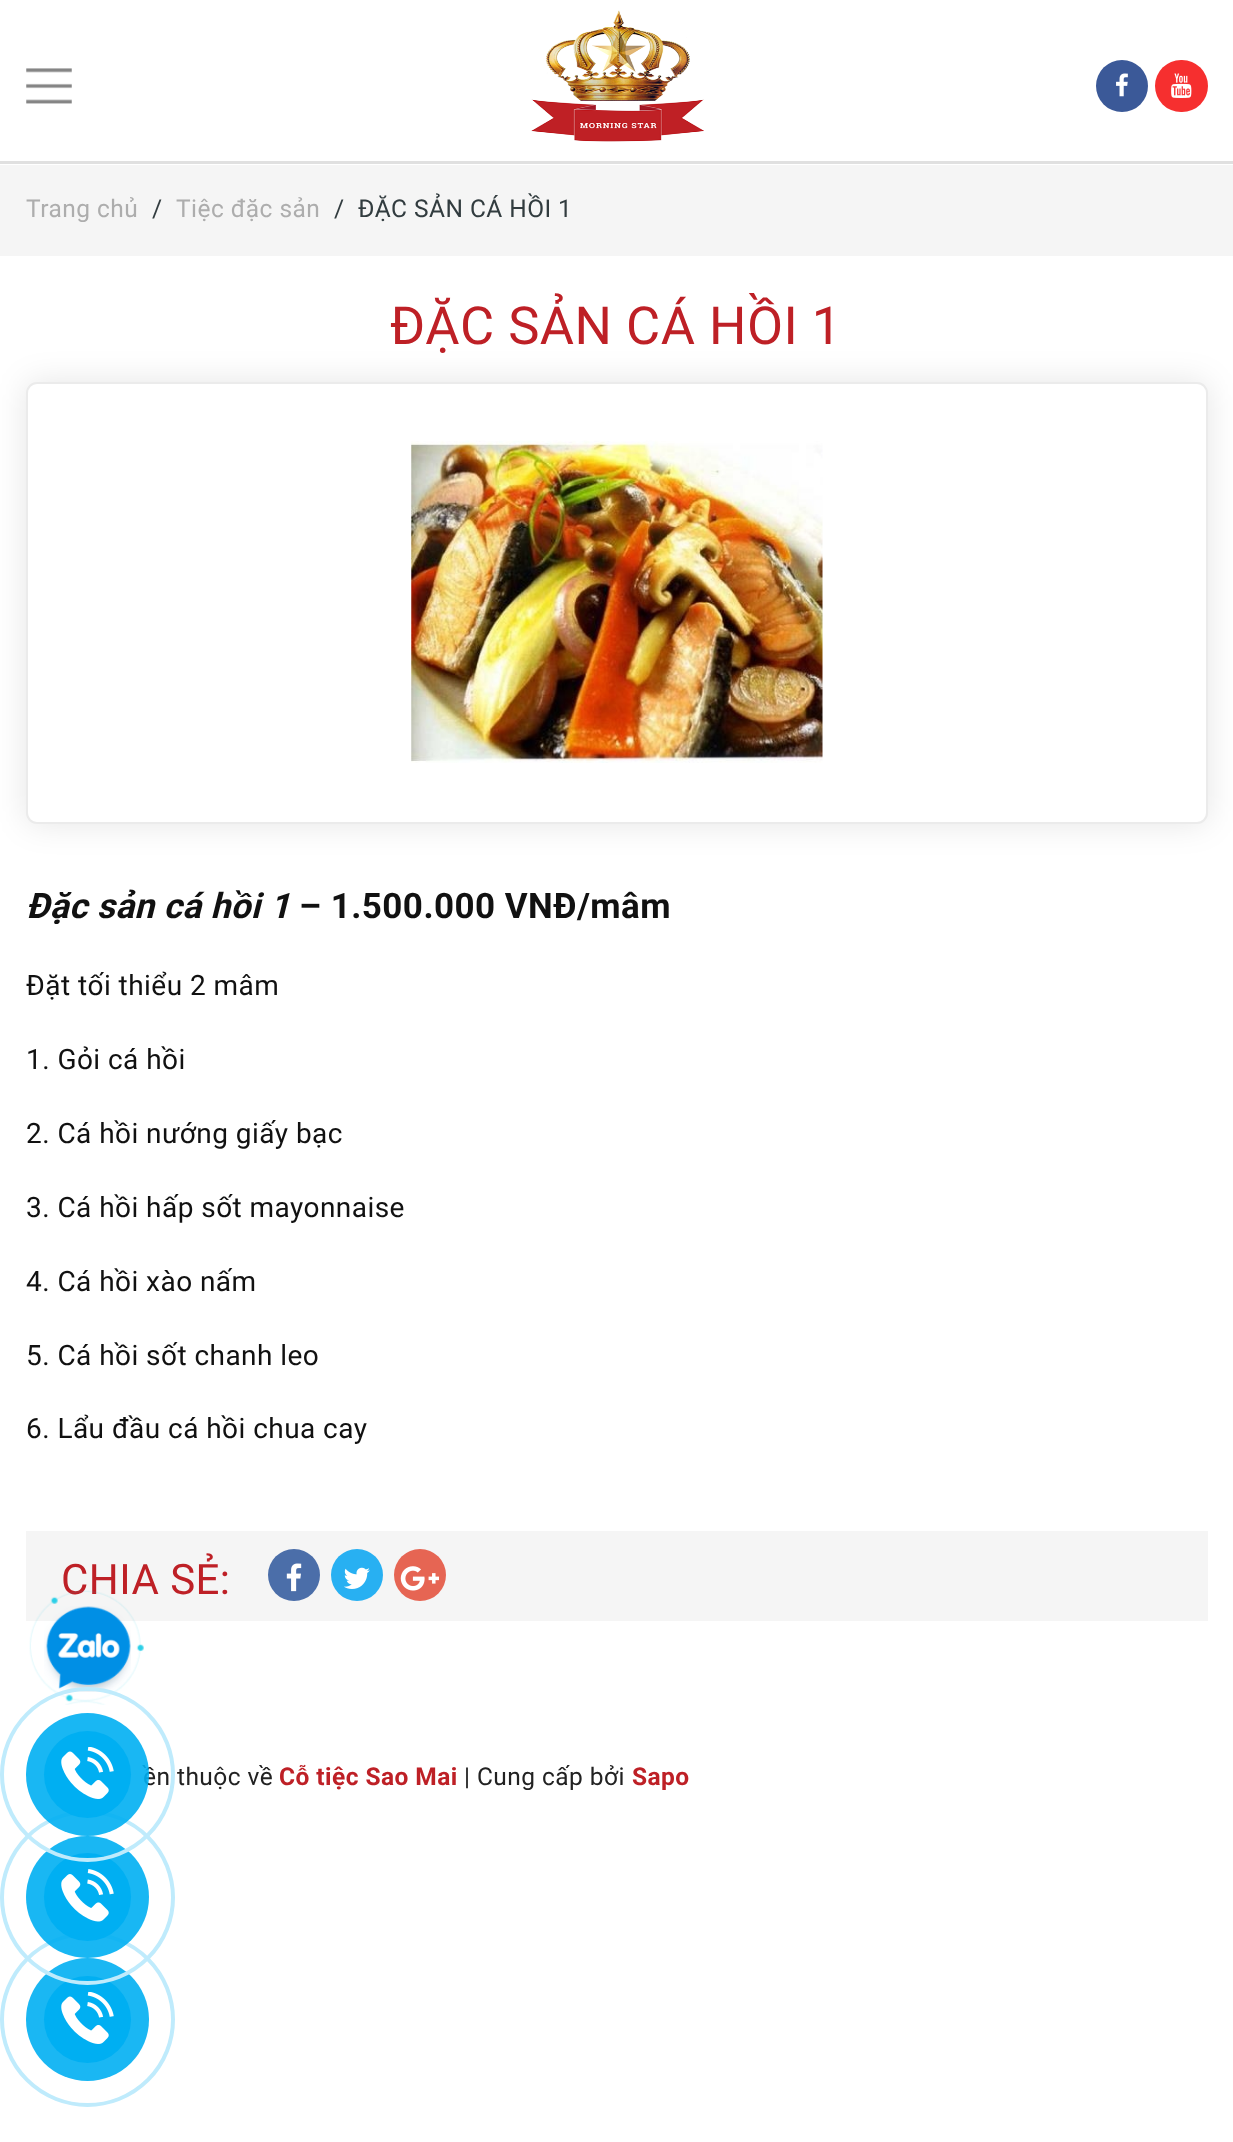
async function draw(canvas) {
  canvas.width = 1233;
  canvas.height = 2142;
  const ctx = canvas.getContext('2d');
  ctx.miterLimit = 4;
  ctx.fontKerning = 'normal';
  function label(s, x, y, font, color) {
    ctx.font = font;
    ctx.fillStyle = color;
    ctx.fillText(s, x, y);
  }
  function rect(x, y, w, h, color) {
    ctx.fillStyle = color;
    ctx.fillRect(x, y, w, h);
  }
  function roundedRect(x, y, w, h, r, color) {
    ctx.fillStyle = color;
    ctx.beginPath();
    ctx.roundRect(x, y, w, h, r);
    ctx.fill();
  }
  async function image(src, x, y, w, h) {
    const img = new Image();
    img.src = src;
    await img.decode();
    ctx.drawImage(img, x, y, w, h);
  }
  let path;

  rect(0, 0, 1233, 2142, '#fff');
  await image('assets/img1.png', 26, 68, 46, 36);
  await image('assets/img2.png', 531, 10, 173, 132);
  ctx.fillStyle = '#3b5998';
  ctx.beginPath();
  ctx.arc(1122, 86, 26, 0, 2 * Math.PI);
  ctx.fill();
  await image('assets/img3.png', 1116, 73, 12, 24);
  roundedRect(1155, 60, 53, 52, 26, '#f62f2f');
  await image('assets/img4.png', 1171, 73, 21, 25);
  ctx.fillStyle = '#e0e0e0';
  path = new Path2D('M0 161V164H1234V252V161Z');
  ctx.fill(path);
  rect(0, 165, 1233, 91, '#f5f5f5');
  ctx.letterSpacing = '0.45px';
  label('Trang chủ', 26, 217, '24.5px Roboto', '#adadad');
  label('/', 152, 217, '24.5px Roboto', '#323c3f');
  label('Tiệc đặc sản', 176, 217, '24.5px Roboto', '#adadad');
  label('/', 334, 217, '24.5px Roboto', '#323c3f');
  label('ĐẶC SẢN CÁ HỒI 1', 358, 217, '24.5px Roboto', '#323c3f');
  ctx.letterSpacing = '0.5px';
  label('ĐẶC SẢN CÁ HỒI 1', 390, 344, '52.5px Roboto', '#be2026');
  ctx.fillStyle = '#0000001a';
  ctx.filter = 'blur(16px)';
  ctx.beginPath();
  ctx.roundRect(26, 382, 1182, 442, 11);
  ctx.fill();
  ctx.filter = 'none';
  ctx.fillStyle = '#fff';
  ctx.beginPath();
  ctx.roundRect(27, 383, 1180, 440, 10);
  ctx.fill();
  ctx.strokeStyle = '#ebebeb';
  ctx.lineWidth = 2;
  ctx.stroke();
  await image('assets/img5.png', 411, 440, 412, 323);
  ctx.letterSpacing = '0.45px';
  label('Đặc sản cá hồi 1', 26, 918, 'italic bold 35px Roboto', '#111');
  label('– 1.500.000 VNĐ/mâm', 299, 918, 'bold 35px Roboto', '#111');
  label('Đặt tối thiểu 2 mâm', 26, 995, '28px Roboto', '#111');
  label('1. Gỏi cá hồi', 26, 1069, '28px Roboto', '#111');
  label('2. Cá hồi nướng giấy bạc', 26, 1143, '28px Roboto', '#111');
  label('3. Cá hồi hấp sốt mayonnaise', 26, 1217, '28px Roboto', '#111');
  label('4. Cá hồi xào nấm', 26, 1291, '28px Roboto', '#111');
  label('5. Cá hồi sốt chanh leo', 26, 1365, '28px Roboto', '#111');
  label('6. Lẩu đầu cá hồi chua cay', 26, 1438, '28px Roboto', '#111');
  rect(26, 1531, 1182, 90, '#f5f5f5');
  label('CHIA SẺ:', 61, 1594, '42px Roboto', '#be2026');
  ctx.fillStyle = '#4b6ea9';
  ctx.beginPath();
  ctx.arc(294, 1575, 26, 0, 2 * Math.PI);
  ctx.fill();
  await image('assets/img6.png', 286, 1563, 16, 29);
  ctx.fillStyle = '#28b0f2';
  ctx.beginPath();
  ctx.arc(357, 1575, 26, 0, 2 * Math.PI);
  ctx.fill();
  await image('assets/img7.png', 344, 1567, 26, 22);
  ctx.fillStyle = '#e66553';
  ctx.beginPath();
  ctx.arc(420, 1575, 26, 0, 2 * Math.PI);
  ctx.fill();
  await image('assets/img8.png', 400, 1566, 39, 25);
  await image('assets/img9.png', 29, 1590, 115, 115);
  await image('assets/img10.png', 44, 1606, 87, 86);
  label('ền thuộc về', 143, 1785, '24.5px Roboto', '#222');
  ctx.beginPath();
  ctx.arc(87.5, 2019.5, 85.5, 0, 2 * Math.PI);
  ctx.strokeStyle = '#bfebfc';
  ctx.lineWidth = 4;
  ctx.stroke();
  ctx.fillStyle = '#1ab7f3';
  ctx.beginPath();
  ctx.arc(87.5, 2019.5, 61.5, 0, 2 * Math.PI);
  ctx.fill();
  ctx.fillStyle = '#00aff2';
  ctx.beginPath();
  ctx.arc(87.5, 2019.5, 43.5, 0, 2 * Math.PI);
  ctx.fill();
  ctx.beginPath();
  ctx.arc(87.5, 1897.5, 85.5, 0, 2 * Math.PI);
  ctx.stroke();
  roundedRect(26, 1836, 123, 122, 61, '#00aff2e6');
  roundedRect(44, 1853, 87, 88, 43.5, '#00aff2');
  ctx.beginPath();
  ctx.arc(87.5, 1774.5, 85.5, 0, 2 * Math.PI);
  ctx.stroke();
  ctx.fillStyle = '#00aff2e6';
  ctx.beginPath();
  ctx.arc(87.5, 1774.5, 61.5, 0, 2 * Math.PI);
  ctx.fill();
  ctx.fillStyle = '#00aff2';
  ctx.beginPath();
  ctx.arc(87.5, 1774.5, 43.5, 0, 2 * Math.PI);
  ctx.fill();
  await image('assets/img11.png', 61, 1747, 53, 52);
  label('Cỗ tiệc Sao Mai', 279, 1785, 'bold 24.5px Roboto', '#be2026');
  label('| Cung cấp bởi', 464, 1785, '24.5px Roboto', '#222');
  label('Sapo', 632, 1785, 'bold 24.5px Roboto', '#be2026');
  await image('assets/img12.png', 61, 1869, 53, 53);
  await image('assets/img11.png', 61, 1992, 53, 52);
}

draw(document.querySelector('canvas'));
